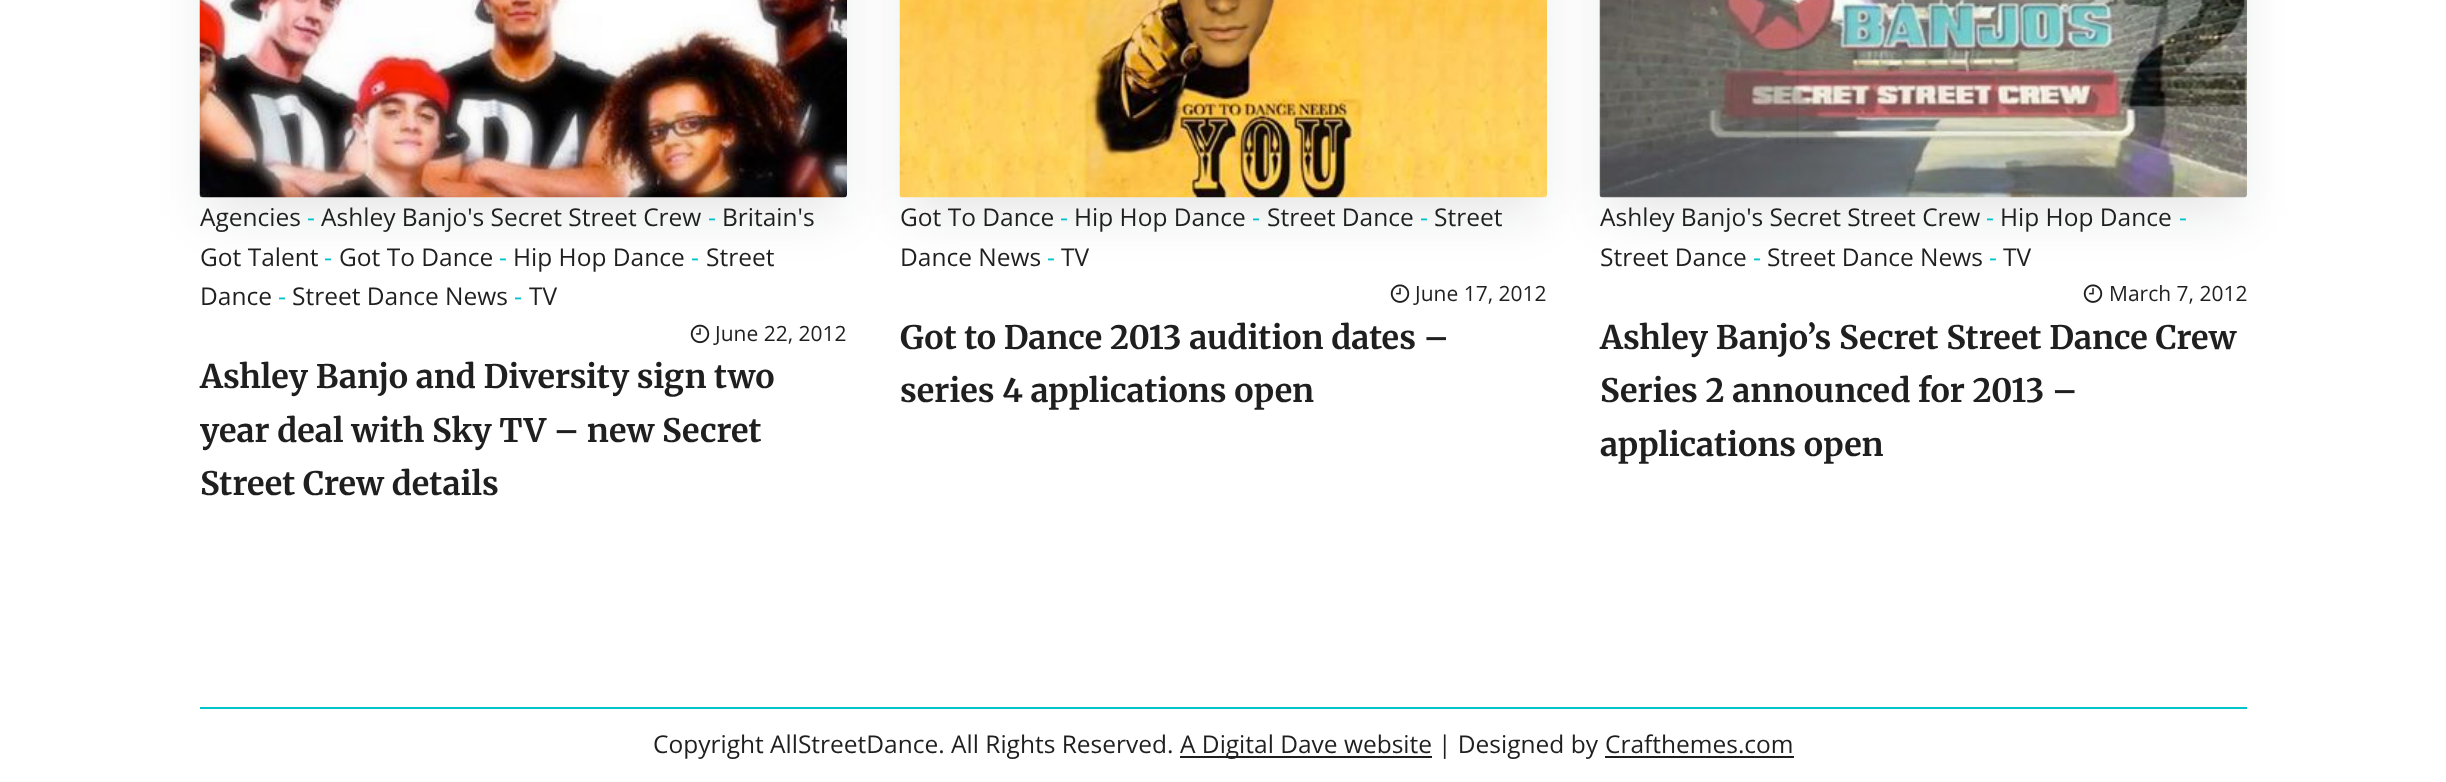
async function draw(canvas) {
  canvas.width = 2446;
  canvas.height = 782;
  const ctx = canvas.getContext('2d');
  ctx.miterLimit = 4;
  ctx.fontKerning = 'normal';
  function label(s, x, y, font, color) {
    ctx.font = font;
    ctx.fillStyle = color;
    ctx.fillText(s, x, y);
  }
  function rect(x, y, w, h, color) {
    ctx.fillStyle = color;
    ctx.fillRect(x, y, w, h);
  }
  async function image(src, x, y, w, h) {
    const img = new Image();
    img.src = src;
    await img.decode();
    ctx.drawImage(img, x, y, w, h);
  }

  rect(0, 0, 2446, 782, '#fff');
  ctx.fillStyle = '#0e11141a';
  ctx.filter = 'blur(24.5px)';
  ctx.beginPath();
  ctx.rect(207, -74, 633, 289);
  ctx.fill();
  ctx.filter = 'none';
  await image('assets/img1.png', 199, 0, 648, 198);
  label('Agencies', 200, 226, '24.5px Open Sans', '#1f1f1f');
  label('-', 307, 226, '24.5px Open Sans', '#00c4cc');
  label('Ashley Banjo\'s Secret Street Crew', 321, 226, '24.5px Open Sans', '#1f1f1f');
  label('-', 708, 226, '24.5px Open Sans', '#00c4cc');
  label('Britain\'s', 722, 226, '24.5px Open Sans', '#1f1f1f');
  label('Got Talent', 200, 266, '24.5px Open Sans', '#1f1f1f');
  label('-', 324, 266, '24.5px Open Sans', '#00c4cc');
  label('Got To Dance', 339, 266, '24.5px Open Sans', '#1f1f1f');
  label('-', 499, 266, '24.5px Open Sans', '#00c4cc');
  label('Hip Hop Dance', 513, 266, '24.5px Open Sans', '#1f1f1f');
  label('-', 691, 266, '24.5px Open Sans', '#00c4cc');
  label('Street', 706, 266, '24.5px Open Sans', '#1f1f1f');
  label('Dance', 200, 305, '24.5px Open Sans', '#1f1f1f');
  label('-', 278, 305, '24.5px Open Sans', '#00c4cc');
  label('Street Dance News', 292, 305, '24.5px Open Sans', '#1f1f1f');
  label('-', 514, 305, '24.5px Open Sans', '#00c4cc');
  label('TV', 529, 305, '24.5px Open Sans', '#1f1f1f');
  await image('assets/img2.png', 690, 324, 20, 20);
  label('June 22, 2012', 715, 341, '21px Open Sans', '#1f1f1f');
  label('Ashley Banjo and Diversity sign two', 200, 388, 'bold 32.4px Merriweather', '#1f1f1f');
  label('year deal with Sky TV – new Secret', 200, 442, 'bold 32.4px Merriweather', '#1f1f1f');
  label('Street Crew details', 200, 495, 'bold 32.4px Merriweather', '#1f1f1f');
  ctx.fillStyle = '#0e11141a';
  ctx.filter = 'blur(24.5px)';
  ctx.beginPath();
  ctx.rect(907, -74, 633, 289);
  ctx.fill();
  ctx.filter = 'none';
  await image('assets/img3.png', 899, 0, 648, 198);
  label('Got To Dance', 900, 226, '24.5px Open Sans', '#1f1f1f');
  label('-', 1060, 226, '24.5px Open Sans', '#00c4cc');
  label('Hip Hop Dance', 1074, 226, '24.5px Open Sans', '#1f1f1f');
  label('-', 1252, 226, '24.5px Open Sans', '#00c4cc');
  label('Street Dance', 1267, 226, '24.5px Open Sans', '#1f1f1f');
  label('-', 1420, 226, '24.5px Open Sans', '#00c4cc');
  label('Street', 1434, 226, '24.5px Open Sans', '#1f1f1f');
  label('Dance News', 900, 266, '24.5px Open Sans', '#1f1f1f');
  label('-', 1047, 266, '24.5px Open Sans', '#00c4cc');
  label('TV', 1061, 266, '24.5px Open Sans', '#1f1f1f');
  await image('assets/img4.png', 1390, 284, 20, 19);
  label('June 17, 2012', 1415, 301, '21px Open Sans', '#1f1f1f');
  label('Got to Dance 2013 audition dates –', 900, 349, 'bold 32.4px Merriweather', '#1f1f1f');
  label('series 4 applications open', 900, 402, 'bold 32.4px Merriweather', '#1f1f1f');
  ctx.fillStyle = '#0e11141a';
  ctx.filter = 'blur(24.5px)';
  ctx.beginPath();
  ctx.rect(1607, -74, 633, 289);
  ctx.fill();
  ctx.filter = 'none';
  await image('assets/img5.png', 1599, 0, 648, 198);
  label('Ashley Banjo\'s Secret Street Crew', 1600, 226, '24.5px Open Sans', '#1f1f1f');
  label('-', 1986, 226, '24.5px Open Sans', '#00c4cc');
  label('Hip Hop Dance', 2000, 226, '24.5px Open Sans', '#1f1f1f');
  label('-', 2179, 226, '24.5px Open Sans', '#00c4cc');
  label('Street Dance', 1600, 266, '24.5px Open Sans', '#1f1f1f');
  label('-', 1753, 266, '24.5px Open Sans', '#00c4cc');
  label('Street Dance News', 1767, 266, '24.5px Open Sans', '#1f1f1f');
  label('-', 1989, 266, '24.5px Open Sans', '#00c4cc');
  label('TV', 2003, 266, '24.5px Open Sans', '#1f1f1f');
  await image('assets/img4.png', 2083, 284, 20, 19);
  label('March 7, 2012', 2109, 301, '21px Open Sans', '#1f1f1f');
  label('Ashley Banjo’s Secret Street Dance Crew', 1600, 349, 'bold 32.4px Merriweather', '#1f1f1f');
  label('Series 2 announced for 2013 –', 1600, 402, 'bold 32.4px Merriweather', '#1f1f1f');
  label('applications open', 1600, 456, 'bold 32.4px Merriweather', '#1f1f1f');
  rect(200, 707, 2047, 2, '#00c4cc');
  label('Copyright AllStreetDance. All Rights Reserved.', 653, 753, '24.5px Open Sans', '#1f1f1f');
  rect(1180, 756, 252, 2, '#1e1e1e');
  label('A Digital Dave website', 1180, 753, '24.5px Open Sans', '#1f1f1f');
  label('| Designed by', 1438, 753, '24.5px Open Sans', '#1f1f1f');
  label('Crafthemes.com', 1605, 753, '24.5px Open Sans', '#1f1f1f');
  rect(1605, 756, 189, 2, '#1e1e1e');
}

draw(document.querySelector('canvas'));
